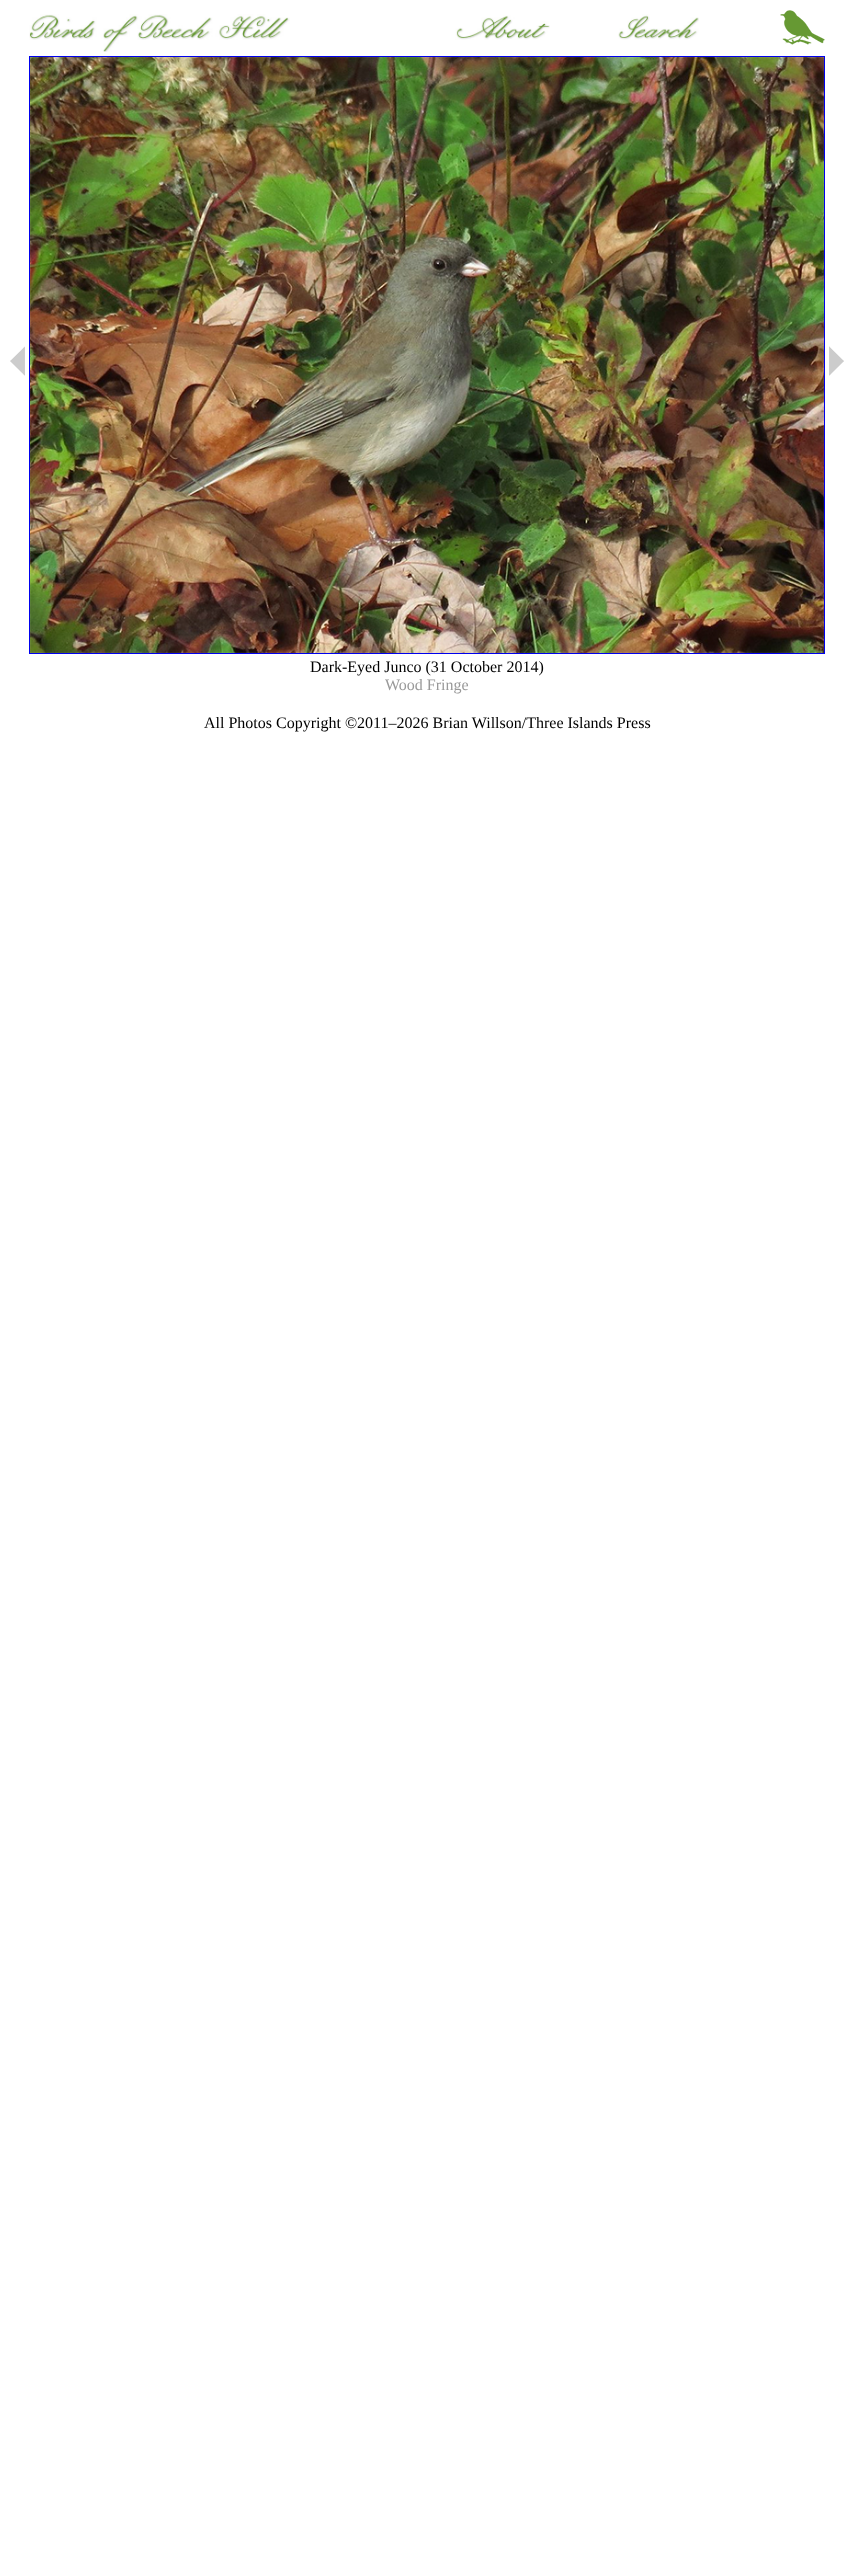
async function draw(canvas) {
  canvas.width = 854;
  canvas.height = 2574;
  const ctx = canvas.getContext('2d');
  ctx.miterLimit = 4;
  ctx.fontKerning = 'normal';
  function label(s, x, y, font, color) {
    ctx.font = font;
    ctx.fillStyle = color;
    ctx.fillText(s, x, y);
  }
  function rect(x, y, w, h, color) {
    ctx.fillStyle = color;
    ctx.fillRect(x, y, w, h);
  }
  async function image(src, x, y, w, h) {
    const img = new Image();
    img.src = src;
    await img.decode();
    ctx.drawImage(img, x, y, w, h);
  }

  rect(0, 0, 854, 2574, '#fff');
  await image('assets/img1.png', 29, 14, 261, 38);
  await image('assets/img2.png', 455, 15, 95, 25);
  await image('assets/img3.png', 618, 14, 81, 26);
  await image('assets/img4.png', 780, 10, 45, 35);
  await image('assets/img5.png', 10, 346, 15, 30);
  await image('assets/img6.png', 829, 346, 15, 30);
  ctx.strokeStyle = '#00e';
  ctx.strokeRect(29.5, 56.5, 795, 597);
  await image('assets/img7.png', 30, 57, 794, 596);
  label('Dark-Eyed Junco (31 October 2014)', 310, 672, '16px Liberation Serif', '#000');
  label('Wood Fringe', 385, 690, '16px Liberation Serif', '#999');
  label('All Photos Copyright ©2011–2026 Brian Willson/Three Islands Press', 204, 728, '16px Liberation Serif', '#000');
}

draw(document.querySelector('canvas'));
